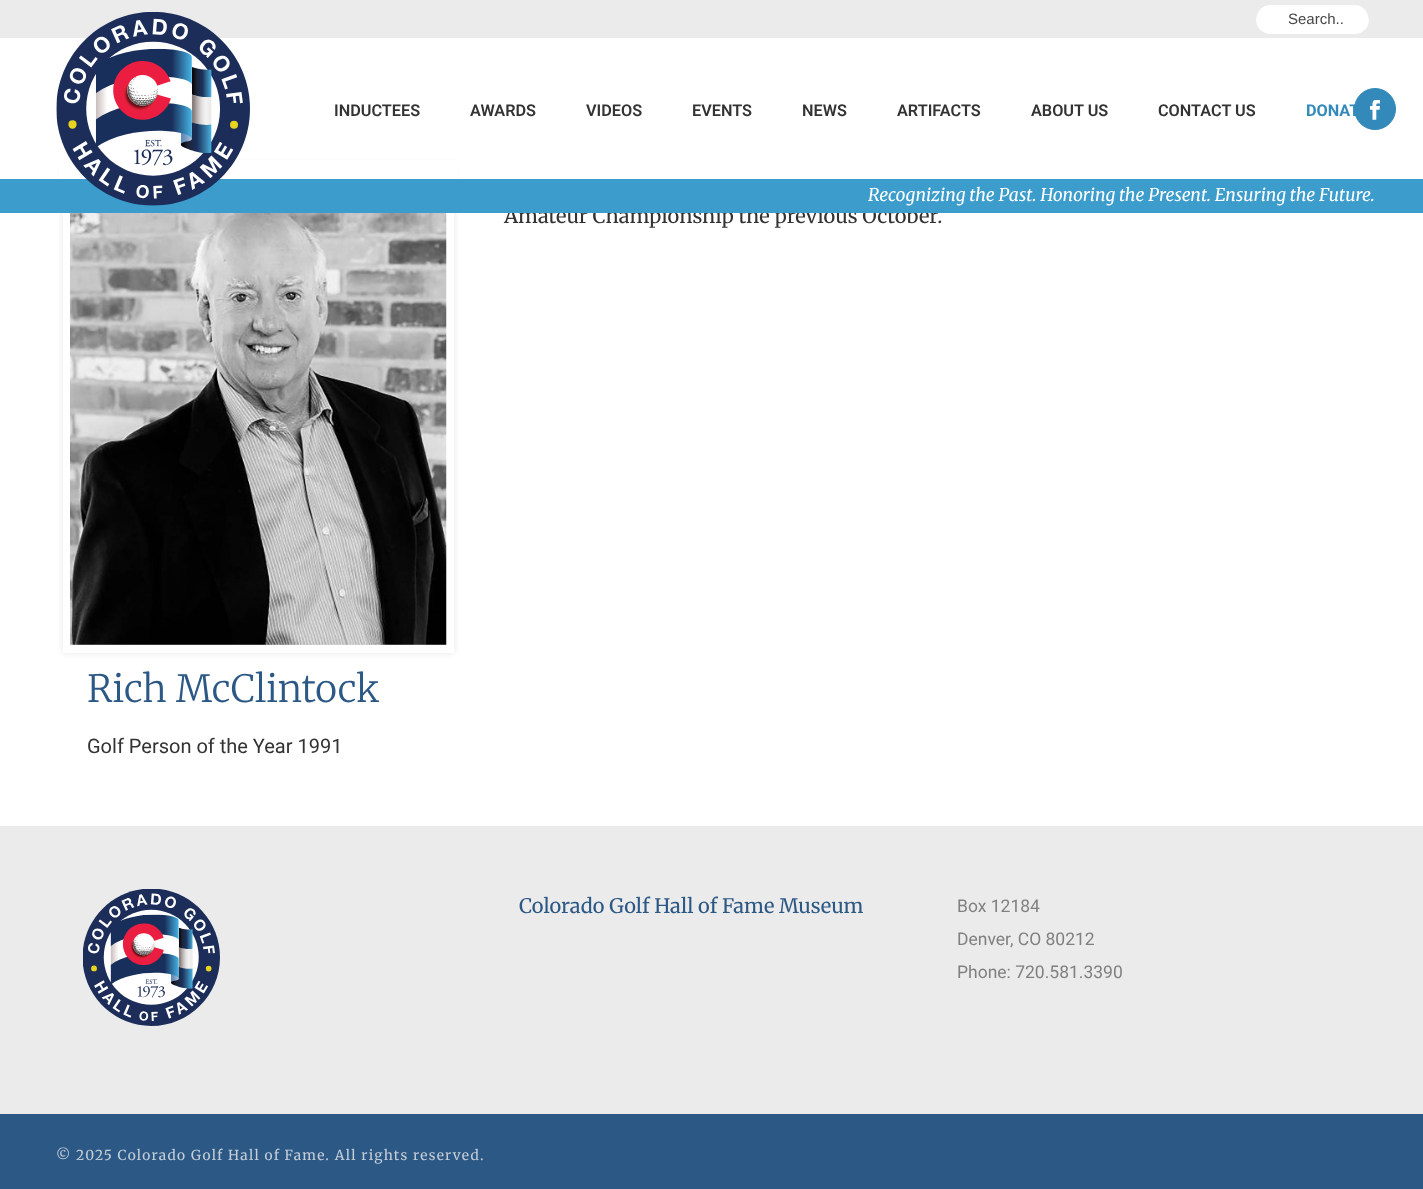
async function draw(canvas) {
  canvas.width = 1423;
  canvas.height = 1189;
  const ctx = canvas.getContext('2d');
  ctx.miterLimit = 4;
  ctx.fontKerning = 'normal';
  function label(s, x, y, font, color) {
    ctx.font = font;
    ctx.fillStyle = color;
    ctx.fillText(s, x, y);
  }
  function rect(x, y, w, h, color) {
    ctx.fillStyle = color;
    ctx.fillRect(x, y, w, h);
  }
  function roundedRect(x, y, w, h, r, color) {
    ctx.fillStyle = color;
    ctx.beginPath();
    ctx.roundRect(x, y, w, h, r);
    ctx.fill();
  }
  async function image(src, x, y, w, h) {
    const img = new Image();
    img.src = src;
    await img.decode();
    ctx.drawImage(img, x, y, w, h);
  }

  rect(0, 0, 1423, 1189, '#fff');
  rect(0, 0, 1423, 38, '#ebebeb');
  ctx.save();
  ctx.beginPath();
  ctx.roundRect(1256, 0, 113, 44, 22);
  ctx.clip();
  roundedRect(1256, 5, 113, 29, 14.5, '#fff');
  ctx.restore();
  label('Search..', 1288, 24, '15px Liberation Sans', '#464646');
  ctx.fillStyle = '#0000001a';
  ctx.filter = 'blur(3px)';
  ctx.beginPath();
  ctx.rect(63, 164, 391, 489);
  ctx.fill();
  ctx.filter = 'none';
  ctx.strokeStyle = '#fff';
  ctx.lineWidth = 8;
  ctx.strokeRect(67, 168, 383, 481);
  rect(59, 160, 399, 19, '#fff');
  label('Amateur Championship the previous October.', 504, 223, '20px Merriweather', '#333');
  rect(0, 179, 1423, 34, '#3c9ccc');
  await image('assets/img1.png', 56, 12, 194, 194);
  label('INDUCTEES', 334, 116, '600 16.25px Roboto', '#333');
  label('AWARDS', 470, 116, '600 16.25px Roboto', '#333');
  label('VIDEOS', 586, 116, '600 16.25px Roboto', '#333');
  label('EVENTS', 692, 116, '600 16.25px Roboto', '#333');
  label('NEWS', 802, 116, '600 16.25px Roboto', '#333');
  label('ARTIFACTS', 897, 116, '600 16.25px Roboto', '#333');
  label('ABOUT US', 1031, 116, '600 16.25px Roboto', '#333');
  label('CONTACT US', 1158, 116, '600 16.25px Roboto', '#333');
  ctx.fillStyle = '#338aba';
  ctx.beginPath();
  ctx.arc(1375, 109, 20.5, 0, 2 * Math.PI);
  ctx.fill();
  ctx.strokeStyle = '#338aba';
  ctx.lineWidth = 1;
  ctx.stroke();
  label('DONAT', 1306, 116, 'bold 16.25px Roboto', '#338aba');
  await image('assets/img2.png', 1370, 100, 10, 20);
  label('Recognizing the Past. Honoring the Present. Ensuring the Future.', 868, 201, 'italic 17.5px Merriweather', '#fff');
  await image('assets/img3.png', 70, 213, 377, 432);
  label('Rich McClintock', 87, 702, '300 37.5px Merriweather', '#2c5886');
  label('Golf Person of the Year 1991', 87, 753, '20px Roboto', '#333');
  rect(0, 826, 1423, 288, '#ebebeb');
  await image('assets/img4.png', 83, 889, 137, 137);
  label('Colorado Golf Hall of Fame Museum', 519, 913, '20px Merriweather', '#2c5886');
  label('Box 12184', 957, 912, '17.5px Roboto', '#808080');
  label('Denver, CO 80212', 957, 945, '17.5px Roboto', '#808080');
  label('Phone: 720.581.3390', 957, 978, '17.5px Roboto', '#808080');
  rect(0, 1114, 1423, 75, '#2c5886');
  ctx.letterSpacing = '1.25px';
  label('© 2025 Colorado Golf Hall of Fame. All rights reserved.', 56, 1160, '13.75px Merriweather', '#c5ced7');
}

draw(document.querySelector('canvas'));
